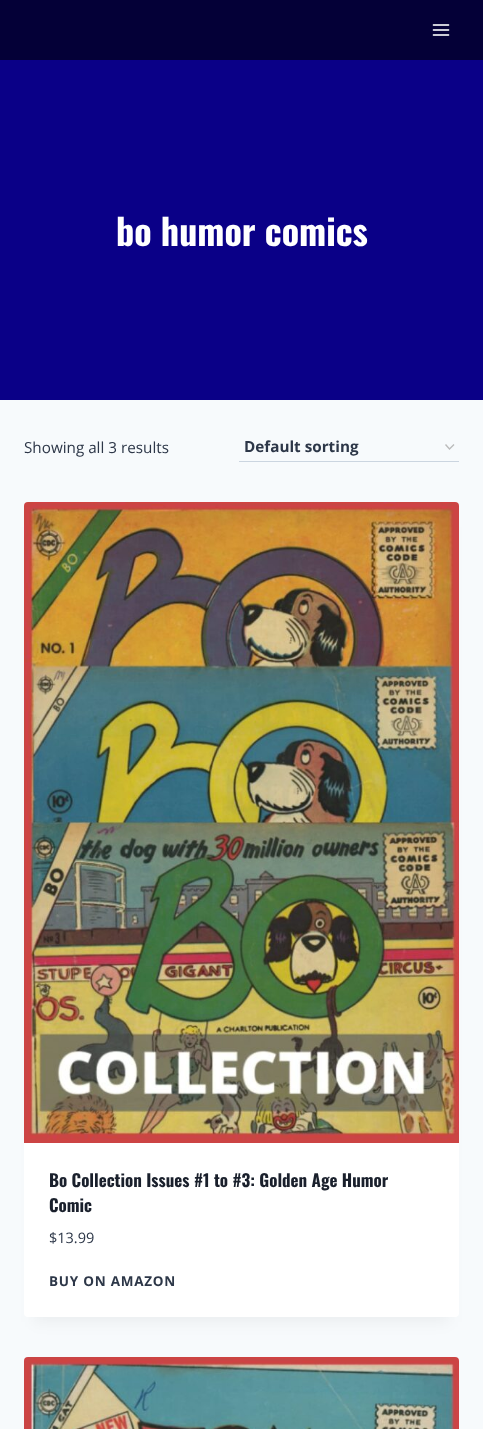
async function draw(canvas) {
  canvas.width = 483;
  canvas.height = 1429;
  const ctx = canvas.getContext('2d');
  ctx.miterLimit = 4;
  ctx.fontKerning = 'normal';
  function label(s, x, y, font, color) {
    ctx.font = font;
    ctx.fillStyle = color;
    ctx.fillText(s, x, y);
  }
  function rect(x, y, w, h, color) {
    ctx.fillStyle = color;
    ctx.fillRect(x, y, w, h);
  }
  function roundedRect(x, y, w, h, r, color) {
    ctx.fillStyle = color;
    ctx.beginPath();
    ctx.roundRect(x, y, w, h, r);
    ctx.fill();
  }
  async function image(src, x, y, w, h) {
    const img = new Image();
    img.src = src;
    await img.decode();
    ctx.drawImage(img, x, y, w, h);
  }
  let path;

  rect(0, 0, 483, 1429, '#f7fafc');
  rect(0, 0, 483, 60, '#040037');
  await image('assets/img1.png', 432, 24, 18, 12);
  rect(0, 60, 483, 340, '#0a0087');
  label('bo humor comics', 116, 246, 'bold 36px Oswald', '#fff');
  label('Showing all 3 results', 24, 453, '15.25px Open Sans', '#2d3748');
  path = new Path2D('M445.5 444.5L449.5 449L454 444.5');
  ctx.strokeStyle = '#bbb';
  ctx.lineWidth = 1.4;
  ctx.stroke(path);
  rect(239, 461, 220, 1, '#cbd5e0');
  label('Default sorting', 244, 452, 'bold 15.25px Open Sans', '#2d3748');
  ctx.fillStyle = '#0000000d';
  ctx.filter = 'blur(7.5px)';
  ctx.beginPath();
  ctx.rect(34, 527, 415, 795);
  ctx.fill();
  ctx.filter = 'none';
  roundedRect(24, 502, 435, 815, 4, '#fff');
  await image('assets/img2.png', 24, 502, 435, 641);
  label('Bo Collection Issues #1 to #3: Golden Age Humor', 49, 1187, 'bold 17px Oswald', '#1a202c');
  label('Comic', 49, 1212, 'bold 17px Oswald', '#1a202c');
  label('$13.99', 49, 1243, '14.5px Open Sans', '#2d3748');
  ctx.letterSpacing = '0.75px';
  label('BUY ON AMAZON', 49, 1286, 'bold 13.5px Open Sans', '#2d3748');
  await image('assets/img3.png', 24, 1357, 435, 72);
}

draw(document.querySelector('canvas'));
